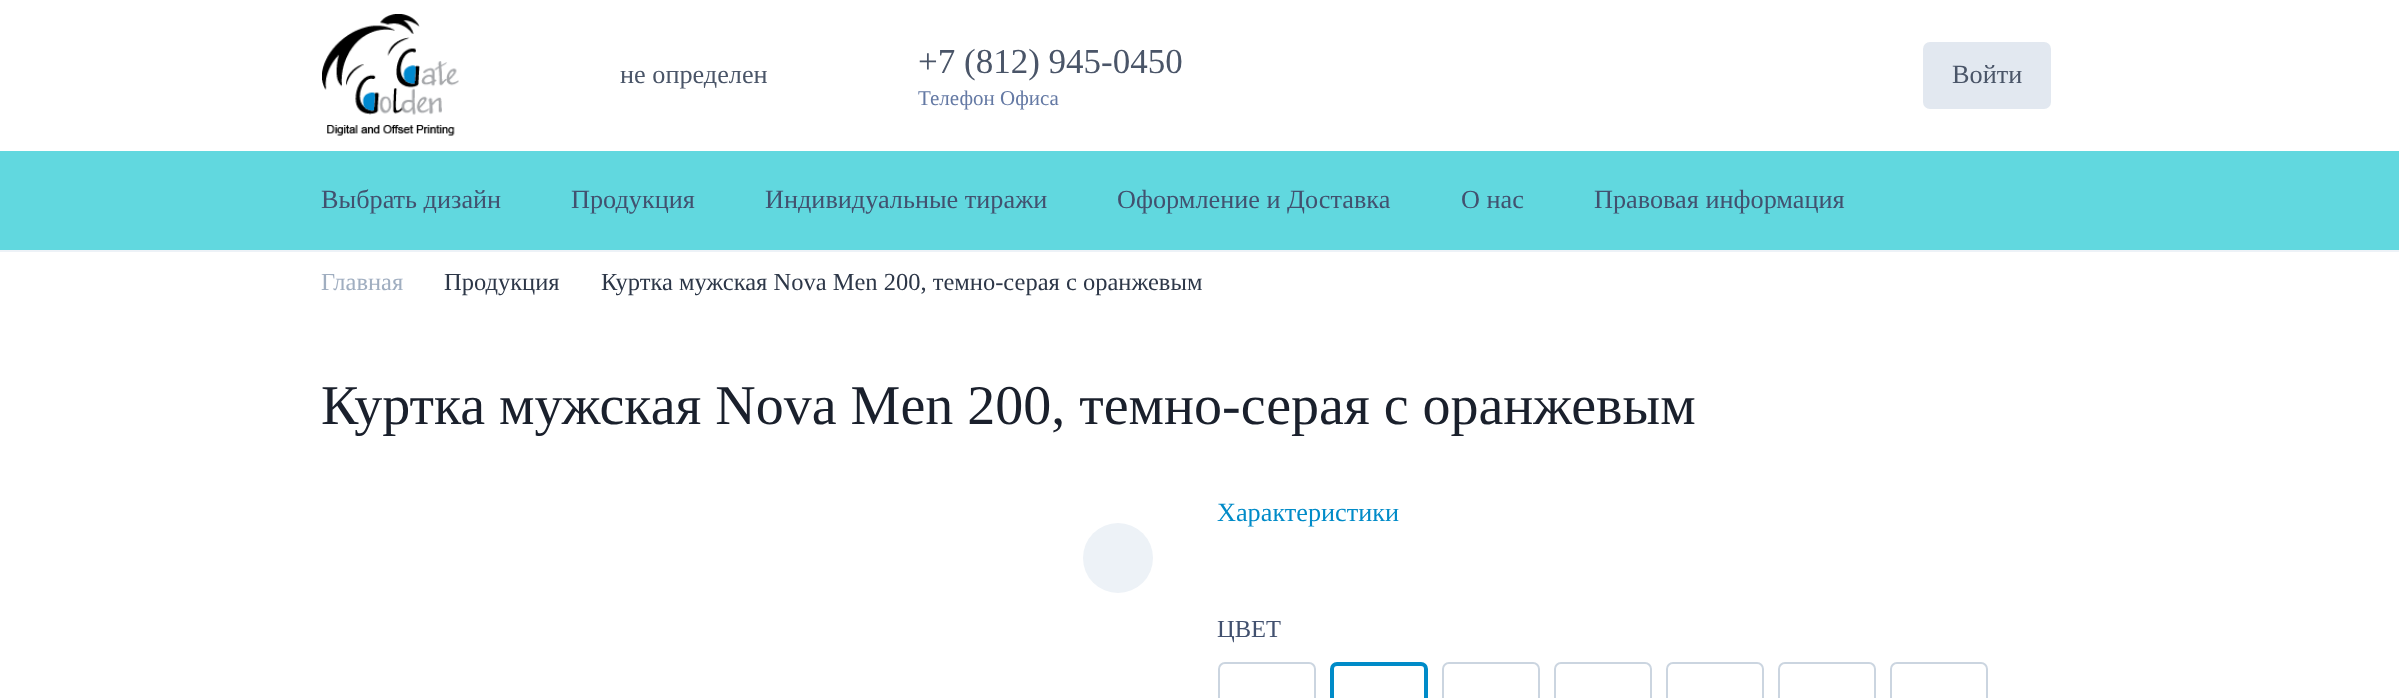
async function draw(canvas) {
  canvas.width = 2399;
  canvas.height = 698;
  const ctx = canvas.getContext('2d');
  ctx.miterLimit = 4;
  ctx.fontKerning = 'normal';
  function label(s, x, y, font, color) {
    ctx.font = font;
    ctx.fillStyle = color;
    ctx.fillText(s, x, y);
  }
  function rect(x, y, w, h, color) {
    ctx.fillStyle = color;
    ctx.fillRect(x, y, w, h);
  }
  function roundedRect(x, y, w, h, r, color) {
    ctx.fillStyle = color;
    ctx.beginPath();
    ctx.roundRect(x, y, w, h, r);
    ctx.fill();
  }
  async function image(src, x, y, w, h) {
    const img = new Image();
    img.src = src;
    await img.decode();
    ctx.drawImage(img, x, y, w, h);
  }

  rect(0, 0, 2399, 698, '#fff');
  await image('assets/img1.png', 322, 14, 137, 122);
  label('не определен', 620, 83, '26.25px Liberation Serif', '#4a5568');
  label('+7 (812) 945-0450', 918, 73, '35px Liberation Serif', '#4a5568');
  label('Телефон Офиса', 918, 105, '21px Liberation Serif', '#6479a4');
  roundedRect(1923, 42, 128, 67, 7, '#e2e8f0');
  label('Войти', 1952, 83, '26.25px Liberation Serif', '#4a5568');
  rect(0, 151, 2399, 99, '#61d8df');
  rect(0, 250, 2399, 2, '#edf2f7');
  label('Выбрать дизайн', 321, 208, '26.25px Liberation Serif', '#42516f');
  label('Продукция', 571, 208, '26.25px Liberation Serif', '#42516f');
  label('Индивидуальные тиражи', 765, 208, '26.25px Liberation Serif', '#42516f');
  label('Оформление и Доставка', 1117, 208, '26.25px Liberation Serif', '#42516f');
  label('О нас', 1461, 208, '26.25px Liberation Serif', '#42516f');
  label('Правовая информация', 1594, 208, '26.25px Liberation Serif', '#42516f');
  label('Главная', 321, 290, '24.5px Liberation Serif', '#a0aec0');
  label('Продукция', 444, 290, '24.5px Liberation Serif', '#2d3748');
  label('Куртка мужская Nova Men 200, темно-серая с оранжевым', 601, 290, '24.5px Liberation Serif', '#2d3748');
  label('Куртка мужская Nova Men 200, темно-серая с оранжевым', 321, 424, '56px Liberation Serif', '#1a202c');
  ctx.fillStyle = '#edf2f7';
  ctx.beginPath();
  ctx.arc(1118, 558, 35, 0, 2 * Math.PI);
  ctx.fill();
  label('Характеристики', 1217, 521, '26.25px Liberation Serif', '#008bc8');
  label('ЦВЕТ', 1217, 637, '24.5px Liberation Serif', '#42516f');
  ctx.beginPath();
  ctx.roundRect(1219, 663, 96, 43, 6);
  ctx.strokeStyle = '#cbd5e0';
  ctx.lineWidth = 2;
  ctx.stroke();
  ctx.beginPath();
  ctx.roundRect(1332, 664, 94, 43, 5);
  ctx.strokeStyle = '#008bc8';
  ctx.lineWidth = 4;
  ctx.stroke();
  ctx.beginPath();
  ctx.roundRect(1443, 663, 96, 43, 6);
  ctx.strokeStyle = '#cbd5e0';
  ctx.lineWidth = 2;
  ctx.stroke();
  ctx.beginPath();
  ctx.roundRect(1555, 663, 96, 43, 6);
  ctx.stroke();
  ctx.beginPath();
  ctx.roundRect(1667, 663, 96, 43, 6);
  ctx.stroke();
  ctx.beginPath();
  ctx.roundRect(1779, 663, 96, 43, 6);
  ctx.stroke();
  ctx.beginPath();
  ctx.roundRect(1891, 663, 96, 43, 6);
  ctx.stroke();
}

draw(document.querySelector('canvas'));
